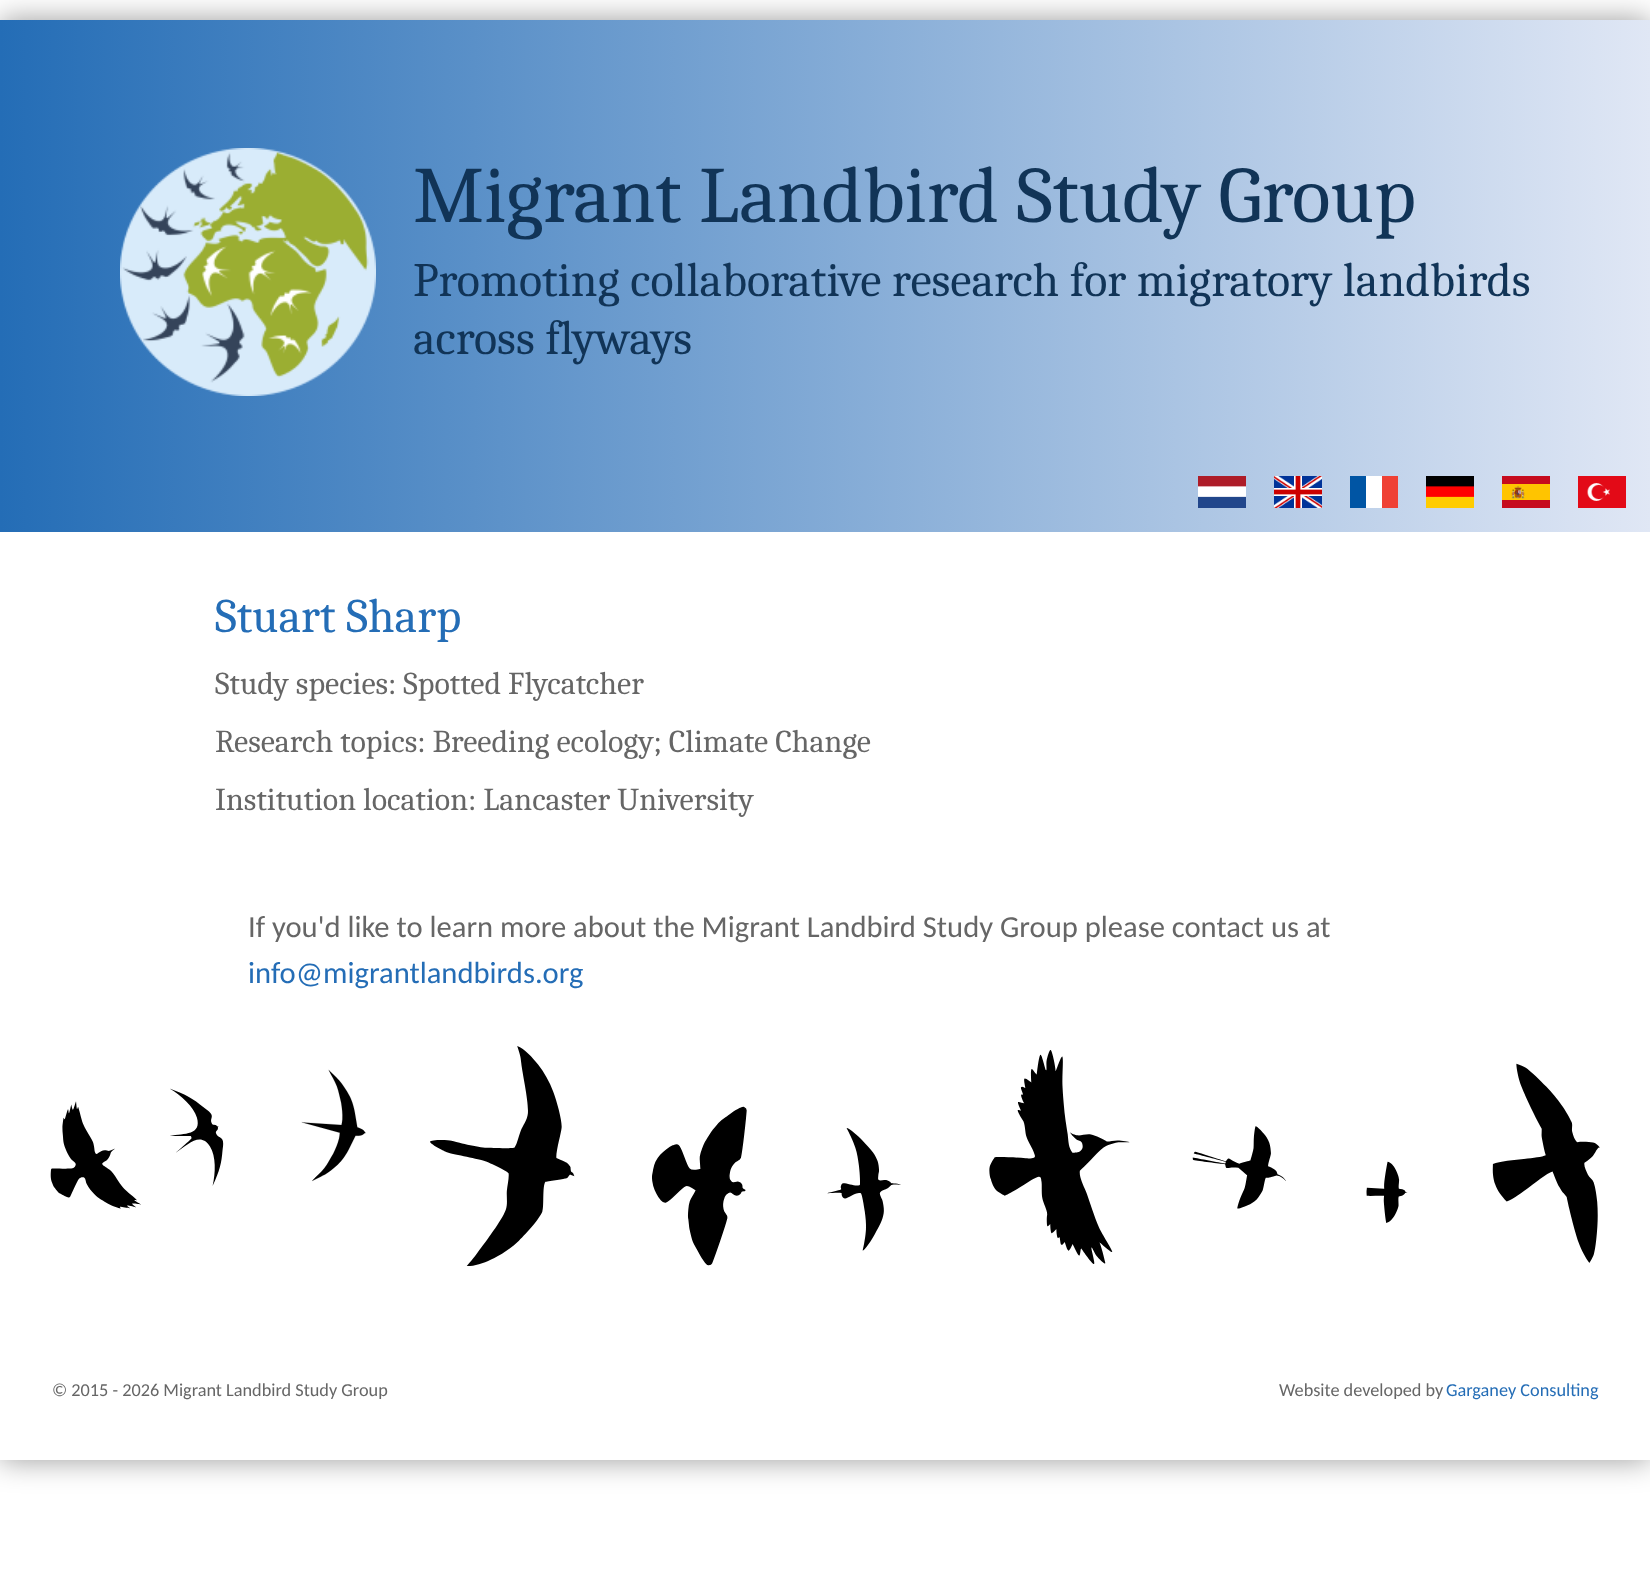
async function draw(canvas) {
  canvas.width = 1650;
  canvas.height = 1593;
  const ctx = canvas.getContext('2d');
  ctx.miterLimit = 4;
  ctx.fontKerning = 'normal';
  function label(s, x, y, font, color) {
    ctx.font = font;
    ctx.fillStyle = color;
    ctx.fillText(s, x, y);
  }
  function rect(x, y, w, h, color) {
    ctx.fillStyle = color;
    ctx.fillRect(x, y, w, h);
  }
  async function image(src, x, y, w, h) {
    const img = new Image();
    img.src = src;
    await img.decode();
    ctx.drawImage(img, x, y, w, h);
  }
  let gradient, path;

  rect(0, 0, 1650, 1593, '#fff');
  ctx.save();
  path = new Path2D('M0 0H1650V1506H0ZM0 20H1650V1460H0Z');
  ctx.clip(path, 'evenodd');
  ctx.fillStyle = '#00000066';
  ctx.filter = 'blur(15px)';
  ctx.beginPath();
  ctx.rect(0, 20, 1650, 1440);
  ctx.fill();
  ctx.filter = 'none';
  ctx.restore();
  gradient = ctx.createLinearGradient(0, 276, 1650, 276);
  gradient.addColorStop(0, '#246db6');
  gradient.addColorStop(1, '#e0e7f5');
  ctx.fillStyle = gradient;
  ctx.fillRect(0, 20, 1650, 512);
  await image('assets/img1.png', 120, 148, 256, 248);
  label('Migrant Landbird Study Group', 413, 222, '80px Caladea', '#113457');
  label('Promoting collaborative research for migratory landbirds', 413, 296, '48px Caladea', '#113457');
  label('across flyways', 413, 354, '48px Caladea', '#113457');
  await image('assets/img2.png', 1198, 476, 48, 32);
  await image('assets/img3.png', 1274, 476, 48, 32);
  await image('assets/img4.png', 1350, 476, 48, 32);
  await image('assets/img5.png', 1426, 476, 48, 32);
  await image('assets/img6.png', 1502, 476, 48, 32);
  await image('assets/img7.png', 1578, 476, 48, 32);
  label('Stuart Sharp', 215, 632, '48px Caladea', '#246db6');
  label('Study species: Spotted Flycatcher', 215, 694, '32px Caladea', '#666');
  label('Research topics: Breeding ecology; Climate Change', 215, 752, '32px Caladea', '#666');
  label('Institution location: Lancaster University', 215, 810, '32px Caladea', '#666');
  label('If you\'d like to learn more about the Migrant Landbird Study Group please contact us at', 248, 937, '30.6px Carlito', '#666');
  label('info@migrantlandbirds.org', 248, 983, '30.6px Carlito', '#246db6');
  await image('assets/img8.png', 50, 1046, 1550, 220);
  label('© 2015 - 2026 Migrant Landbird Study Group', 52, 1396, '18.25px Carlito', '#666');
  label('Website developed by', 1279, 1396, '18.25px Carlito', '#666');
  label('Garganey Consulting', 1446, 1396, '18.25px Carlito', '#246db6');
}

draw(document.querySelector('canvas'));
